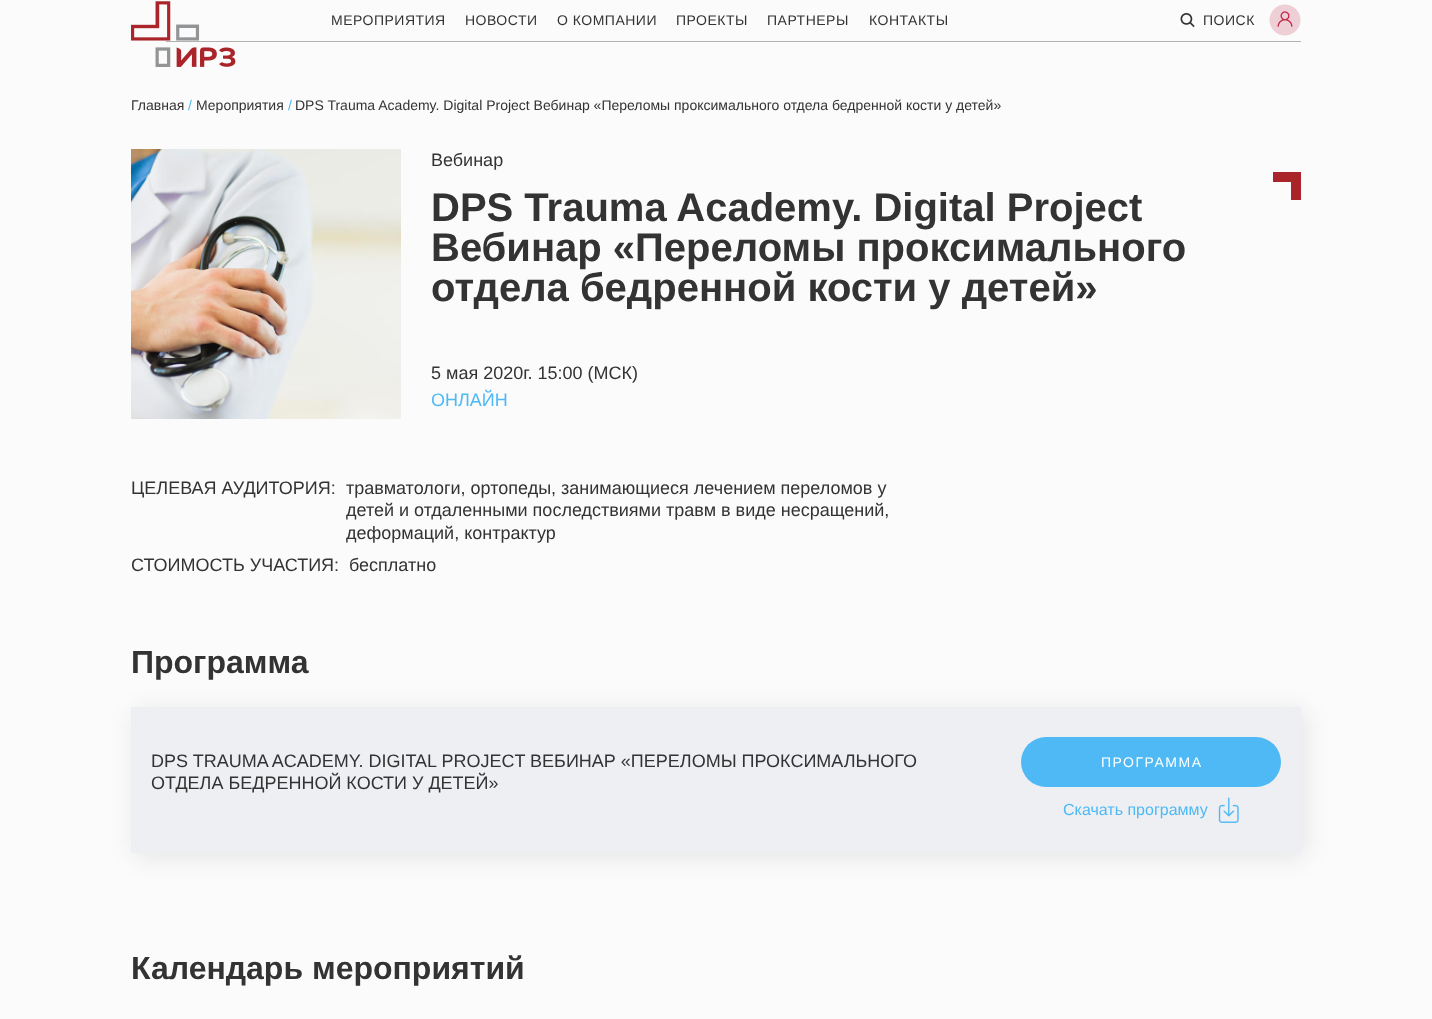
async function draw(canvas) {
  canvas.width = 1432;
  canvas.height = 1019;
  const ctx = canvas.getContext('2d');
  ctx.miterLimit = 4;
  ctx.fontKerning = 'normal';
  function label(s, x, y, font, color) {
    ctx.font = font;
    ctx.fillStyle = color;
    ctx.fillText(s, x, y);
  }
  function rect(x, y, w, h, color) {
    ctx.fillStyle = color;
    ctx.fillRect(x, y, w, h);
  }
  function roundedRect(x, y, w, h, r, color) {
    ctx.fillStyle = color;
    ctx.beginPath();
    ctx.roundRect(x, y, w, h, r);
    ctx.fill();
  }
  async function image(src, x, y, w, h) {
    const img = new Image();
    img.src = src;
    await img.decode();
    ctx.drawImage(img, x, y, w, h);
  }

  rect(0, 0, 1432, 1019, '#fbfbfb');
  rect(166, 41, 1135, 1, '#b1b1b0');
  await image('assets/img1.png', 131, 1, 105, 66);
  ctx.letterSpacing = '0.5px';
  label('МЕРОПРИЯТИЯ', 331, 25, '14px Liberation Sans', '#333');
  label('НОВОСТИ', 465, 25, '14px Liberation Sans', '#333');
  label('О КОМПАНИИ', 557, 25, '14px Liberation Sans', '#333');
  label('ПРОЕКТЫ', 676, 25, '14px Liberation Sans', '#333');
  label('ПАРТНЕРЫ', 767, 25, '14px Liberation Sans', '#333');
  label('КОНТАКТЫ', 869, 25, '14px Liberation Sans', '#333');
  await image('assets/img2.png', 1180, 13, 15, 14);
  label('ПОИСК', 1203, 25, '14px Liberation Sans', '#333');
  await image('assets/img3.png', 1269, 4, 32, 32);
  ctx.letterSpacing = '0px';
  label('Главная', 131, 110, '14px Liberation Sans', '#333');
  label('/', 188, 110, '14px Liberation Sans', '#4eb9f5');
  label('Мероприятия', 196, 110, '14px Liberation Sans', '#333');
  label('/', 288, 110, '14px Liberation Sans', '#4eb9f5');
  label('DPS Trauma Academy. Digital Project Вебинар «Переломы проксимального отдела бедренной кости у детей»', 295, 110, '14px Liberation Sans', '#333');
  await image('assets/img4.png', 131, 149, 270, 270);
  label('Вебинар', 431, 166, '18px Liberation Sans', '#333');
  rect(1273, 172, 28, 10, '#aa252a');
  rect(1291, 182, 10, 18, '#aa252a');
  label('DPS Trauma Academy. Digital Project', 431, 221, 'bold 40px Liberation Sans', '#333');
  label('Вебинар «Переломы проксимального', 431, 261, 'bold 40px Liberation Sans', '#333');
  label('отдела бедренной кости у детей»', 431, 301, 'bold 40px Liberation Sans', '#333');
  label('5 мая 2020г. 15:00 (МСК)', 431, 379, '18px Liberation Sans', '#333');
  label('ОНЛАЙН', 431, 406, '18px Liberation Sans', '#4eb9f5');
  label('ЦЕЛЕВАЯ АУДИТОРИЯ:', 131, 494, '18px Liberation Sans', '#333');
  label('травматологи, ортопеды, занимающиеся лечением переломов у', 346, 494, '18px Liberation Sans', '#333');
  label('детей и отдаленными последствиями травм в виде несращений,', 346, 516, '18px Liberation Sans', '#333');
  label('деформаций, контрактур', 346, 539, '18px Liberation Sans', '#333');
  label('СТОИМОСТЬ УЧАСТИЯ:', 131, 571, '18px Liberation Sans', '#333');
  label('бесплатно', 349, 571, '18px Liberation Sans', '#333');
  label('Программа', 131, 673, 'bold 32px Liberation Sans', '#333');
  ctx.fillStyle = '#00000017';
  ctx.filter = 'blur(12.5px)';
  ctx.beginPath();
  ctx.rect(135, 711, 1170, 146);
  ctx.fill();
  ctx.filter = 'none';
  rect(131, 707, 1170, 146, '#edeff3');
  label('DPS TRAUMA ACADEMY. DIGITAL PROJECT ВЕБИНАР «ПЕРЕЛОМЫ ПРОКСИМАЛЬНОГО', 151, 767, '18px Liberation Sans', '#333');
  label('ОТДЕЛА БЕДРЕННОЙ КОСТИ У ДЕТЕЙ»', 151, 789, '18px Liberation Sans', '#333');
  roundedRect(1021, 737, 260, 50, 25, '#4eb9f5');
  ctx.letterSpacing = '1.5px';
  label('ПРОГРАММА', 1101, 767, '14px Liberation Sans', '#fff');
  ctx.letterSpacing = '0px';
  label('Скачать программу', 1063, 815, '16px Liberation Sans', '#4eb9f5');
  await image('assets/img5.png', 1218, 797, 21, 26);
  label('Календарь мероприятий', 131, 979, 'bold 32px Liberation Sans', '#333');
}

draw(document.querySelector('canvas'));
